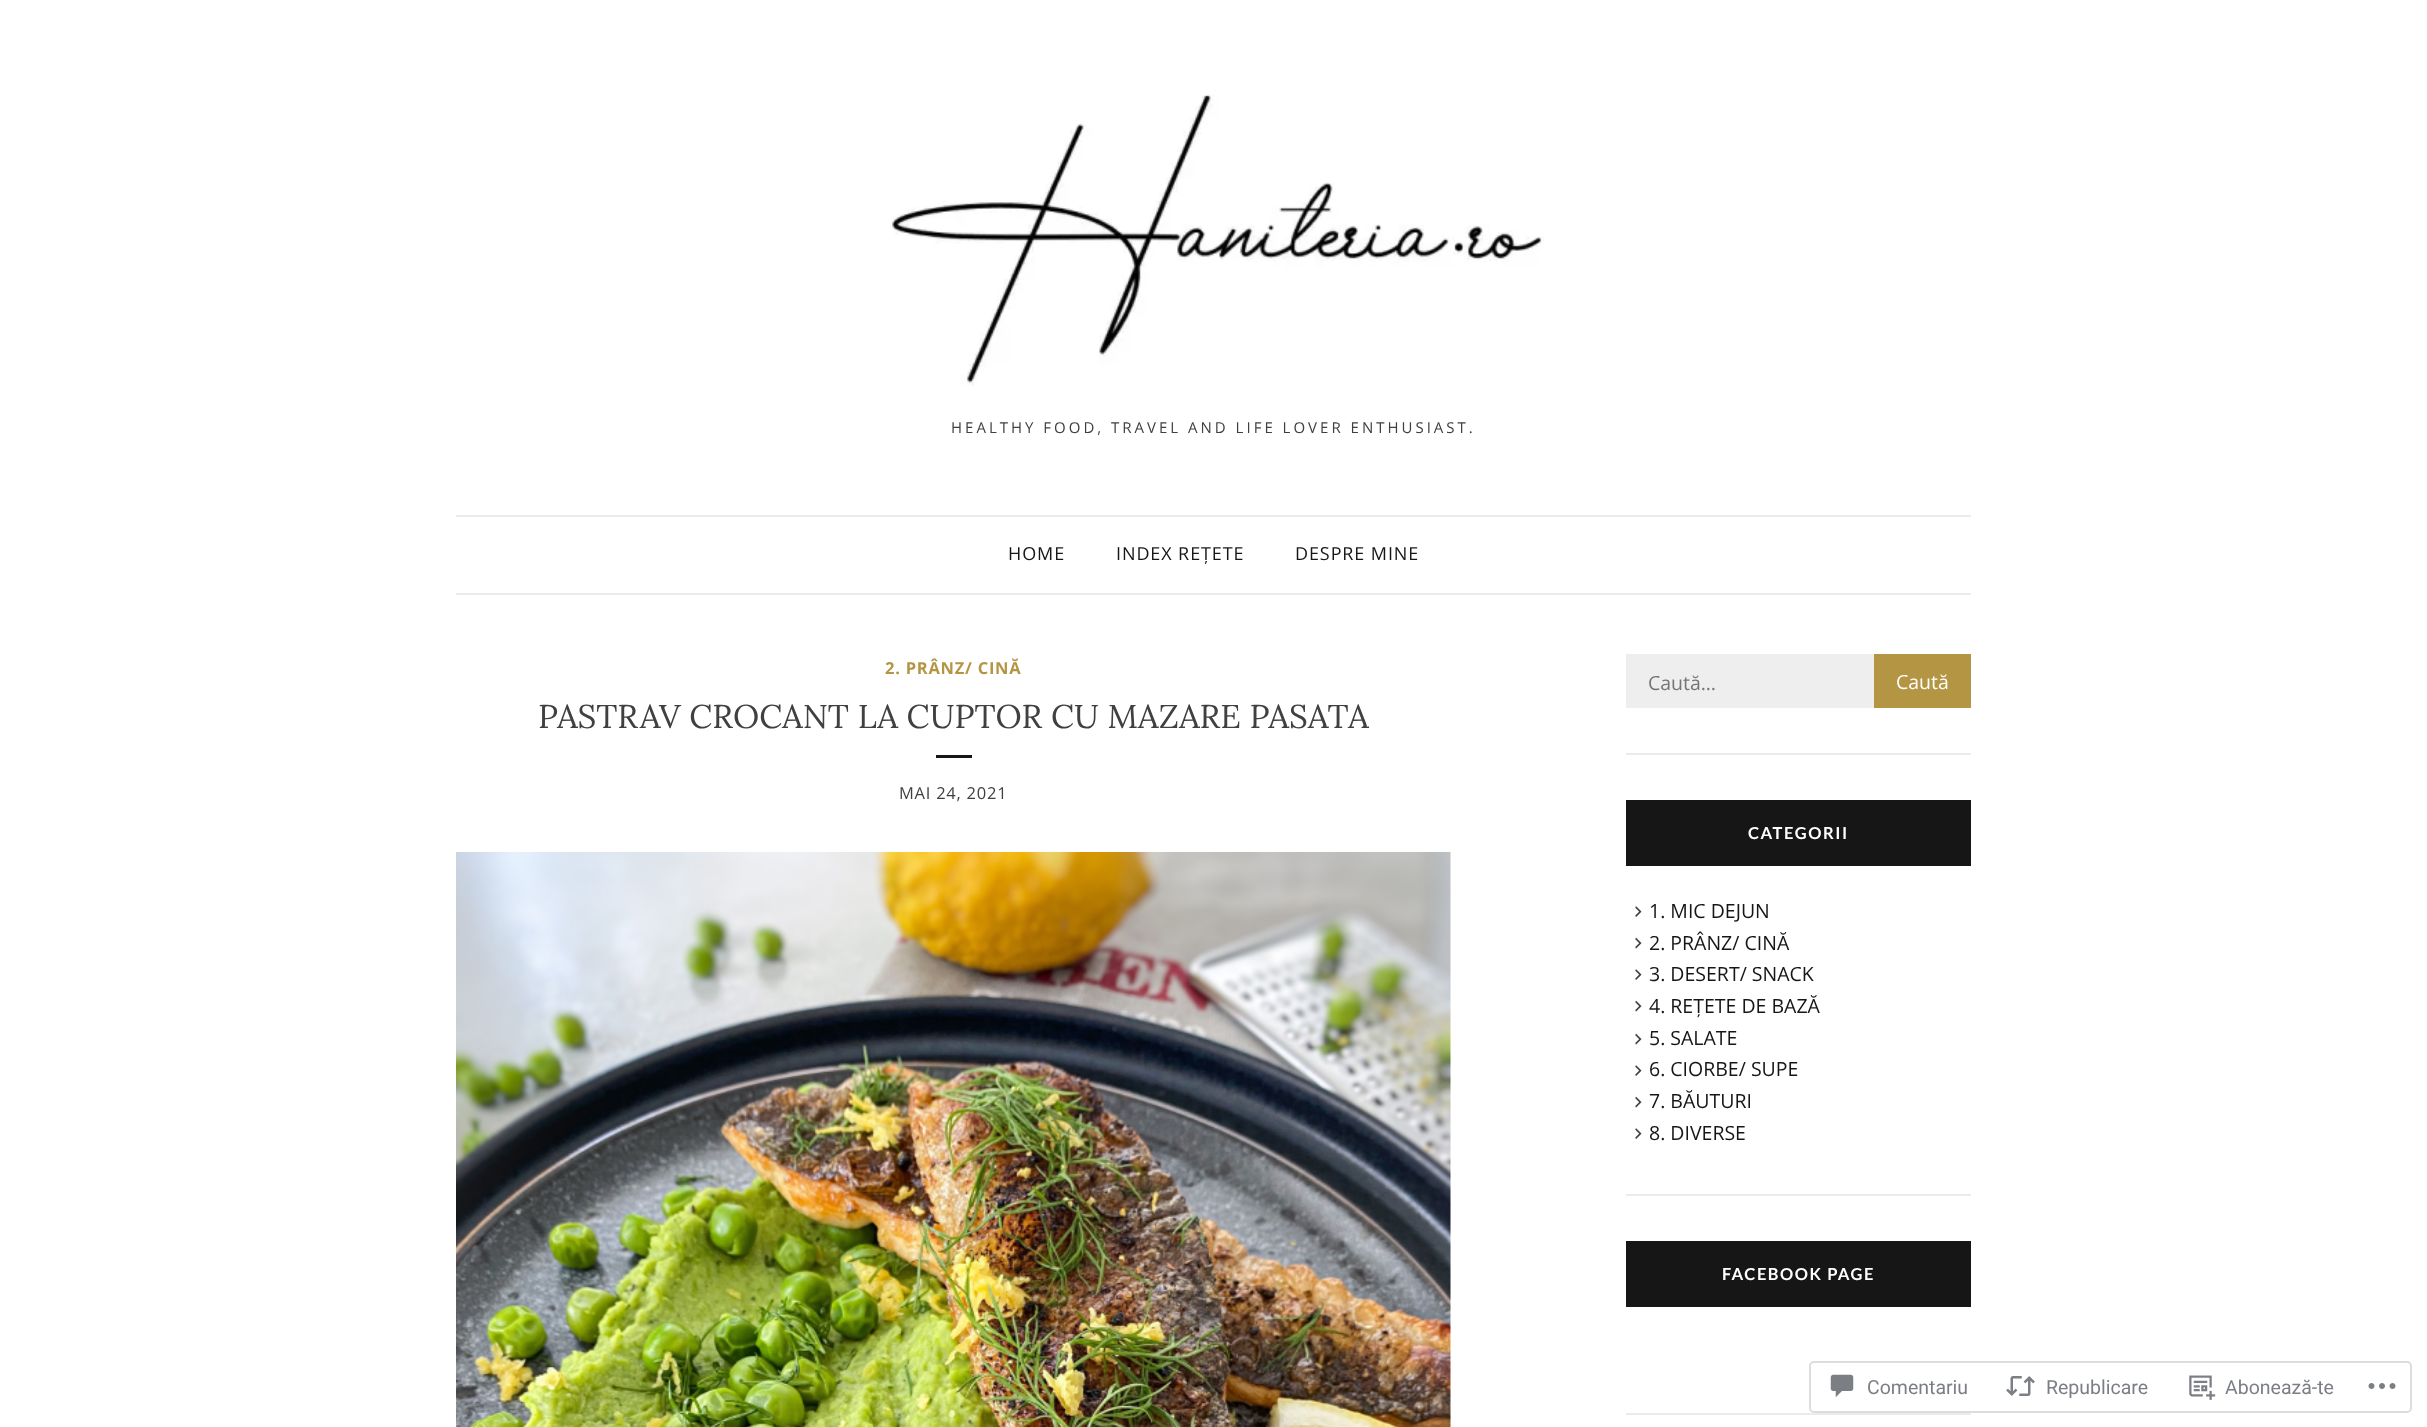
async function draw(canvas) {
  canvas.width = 2427;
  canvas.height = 1427;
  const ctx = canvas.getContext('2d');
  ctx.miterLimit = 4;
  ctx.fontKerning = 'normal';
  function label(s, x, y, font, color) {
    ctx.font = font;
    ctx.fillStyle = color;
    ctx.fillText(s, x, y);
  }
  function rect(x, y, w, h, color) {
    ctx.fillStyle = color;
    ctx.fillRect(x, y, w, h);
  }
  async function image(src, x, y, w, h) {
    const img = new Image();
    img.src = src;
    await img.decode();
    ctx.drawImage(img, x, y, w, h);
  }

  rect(0, 0, 2427, 1427, '#fff');
  await image('assets/img1.png', 890, 94, 654, 292);
  ctx.letterSpacing = '3px';
  label('HEALTHY FOOD, TRAVEL AND LIFE LOVER ENTHUSIAST.', 951, 433, '15px Open Sans', '#404040');
  rect(456, 515, 1515, 2, '#ebebeb');
  rect(456, 593, 1515, 2, '#ebebeb');
  ctx.letterSpacing = '0.9px';
  label('HOME', 1008, 560, '18px Open Sans', '#161616');
  label('INDEX REȚETE', 1116, 560, '18px Open Sans', '#161616');
  label('DESPRE MINE', 1295, 560, '18px Open Sans', '#161616');
  ctx.letterSpacing = '0.75px';
  label('2. PRÂNZ/ CINĂ', 885, 674, 'bold 16.5px Open Sans', '#b49543');
  ctx.letterSpacing = '0px';
  label('PASTRAV CROCANT LA CUPTOR CU MAZARE PASATA', 538, 728, '33px Lora', '#404040');
  rect(936, 755, 36, 3, '#161616');
  ctx.letterSpacing = '0.75px';
  label('MAI 24, 2021', 899, 799, '16.5px Open Sans', '#404040');
  await image('assets/img2.png', 456, 852, 995, 575);
  rect(1626, 753, 345, 2, '#ebebeb');
  rect(1626, 654, 248, 54, '#eee');
  ctx.letterSpacing = '0px';
  label('Caută…', 1648, 690, '19.5px Open Sans', '#757575');
  rect(1874, 654, 97, 54, '#b49543');
  label('Caută', 1896, 689, '19.5px Open Sans', '#fff');
  rect(1626, 1194, 345, 2, '#ebebeb');
  rect(1626, 800, 345, 66, '#161616');
  ctx.letterSpacing = '1.5px';
  label('CATEGORII', 1748, 839, 'bold 16.5px Lato', '#fff');
  await image('assets/img3.png', 1635, 906, 7, 11);
  ctx.letterSpacing = '0px';
  label('1. MIC DEJUN', 1649, 918, '19.5px Open Sans', '#161616');
  await image('assets/img4.png', 1635, 937, 7, 12);
  label('2. PRÂNZ/ CINĂ', 1649, 950, '19.5px Open Sans', '#161616');
  await image('assets/img3.png', 1635, 969, 7, 11);
  label('3. DESERT/ SNACK', 1649, 981, '19.5px Open Sans', '#161616');
  await image('assets/img4.png', 1635, 1000, 7, 12);
  label('4. REȚETE DE BAZĂ', 1649, 1013, '19.5px Open Sans', '#161616');
  await image('assets/img4.png', 1635, 1033, 7, 12);
  label('5. SALATE', 1649, 1045, '19.5px Open Sans', '#161616');
  await image('assets/img3.png', 1635, 1065, 7, 11);
  label('6. CIORBE/ SUPE', 1649, 1076, '19.5px Open Sans', '#161616');
  await image('assets/img4.png', 1635, 1096, 7, 12);
  label('7. BĂUTURI', 1649, 1108, '19.5px Open Sans', '#161616');
  await image('assets/img3.png', 1635, 1128, 7, 11);
  label('8. DIVERSE', 1649, 1140, '19.5px Open Sans', '#161616');
  rect(1626, 1413, 345, 2, '#ebebeb');
  rect(1626, 1241, 345, 66, '#161616');
  ctx.letterSpacing = '1.5px';
  label('FACEBOOK PAGE', 1722, 1280, 'bold 16.5px Lato', '#fff');
  ctx.beginPath();
  ctx.roundRect(1810, 1362, 601, 50, 4);
  ctx.strokeStyle = '#dddddf';
  ctx.lineWidth = 2;
  ctx.stroke();
  await image('assets/img5.png', 1830, 1374, 24, 24);
  ctx.letterSpacing = '0px';
  label('Comentariu', 1867, 1394, '19.5px Roboto', '#7b7f85');
  await image('assets/img6.png', 2006, 1376, 29, 20);
  label('Republicare', 2046, 1394, '19.5px Roboto', '#7b7f85');
  await image('assets/img7.png', 2189, 1375, 27, 25);
  label('Abonează-te', 2225, 1394, '19.5px Roboto', '#7b7f85');
  await image('assets/img8.png', 2368, 1383, 28, 6);
}

draw(document.querySelector('canvas'));
